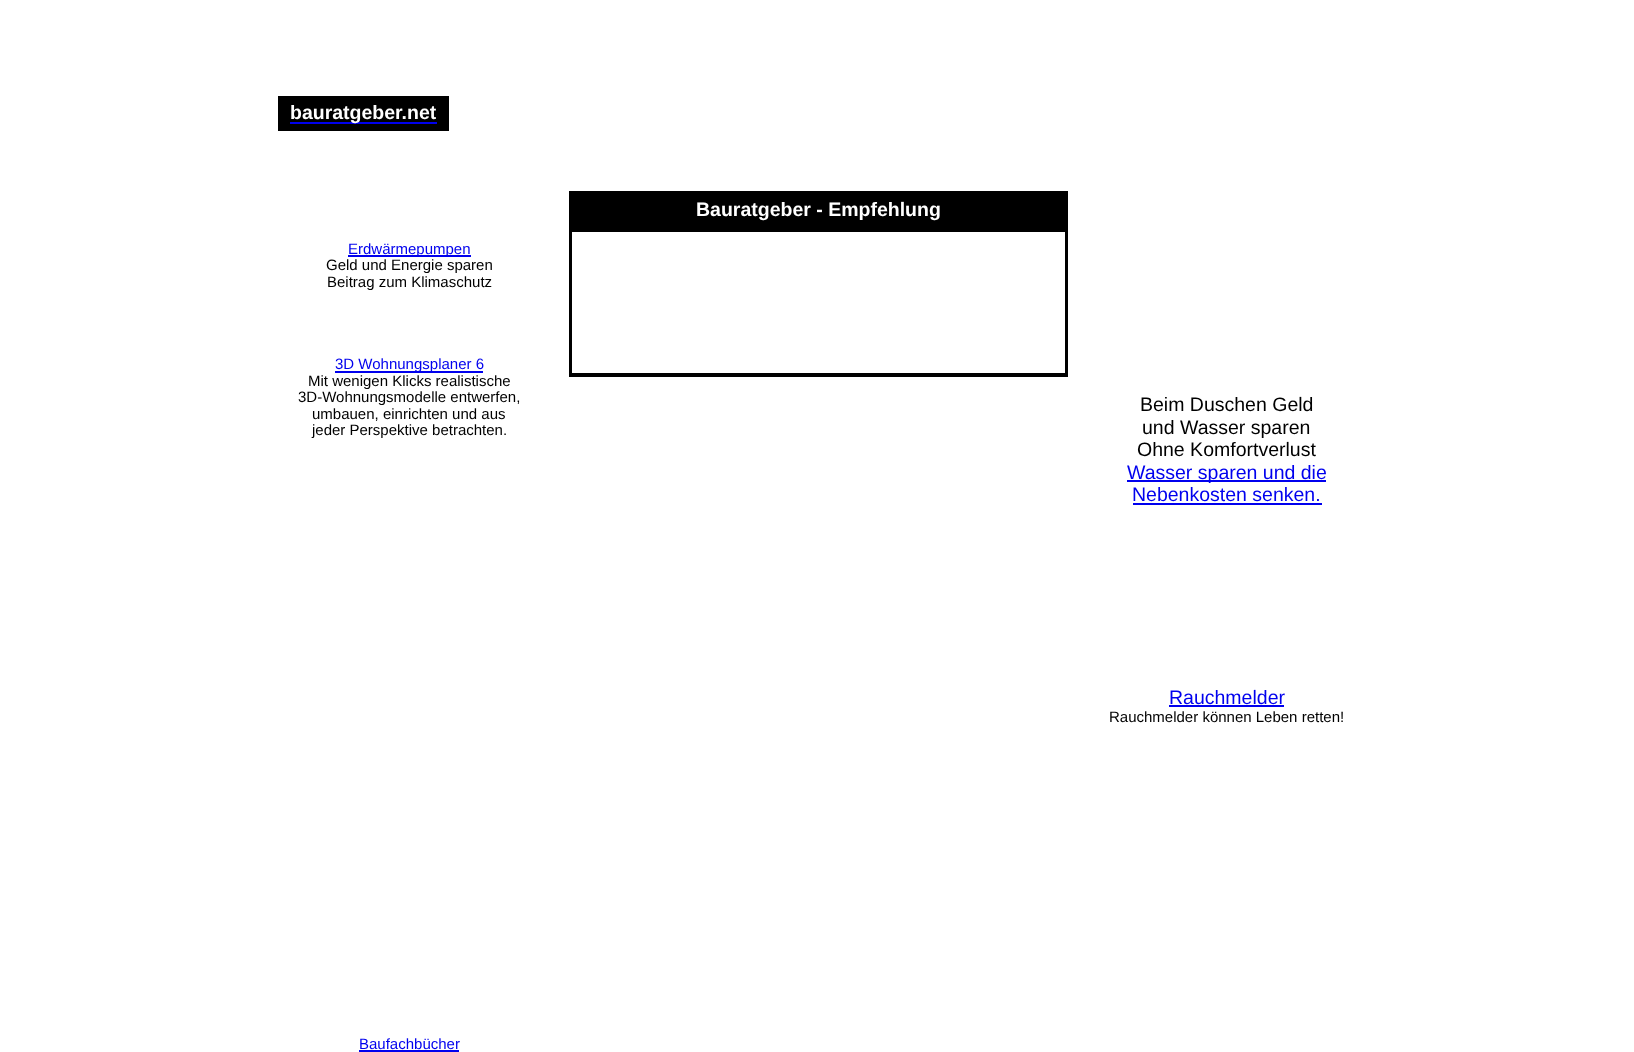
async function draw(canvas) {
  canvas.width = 1634;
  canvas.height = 1052;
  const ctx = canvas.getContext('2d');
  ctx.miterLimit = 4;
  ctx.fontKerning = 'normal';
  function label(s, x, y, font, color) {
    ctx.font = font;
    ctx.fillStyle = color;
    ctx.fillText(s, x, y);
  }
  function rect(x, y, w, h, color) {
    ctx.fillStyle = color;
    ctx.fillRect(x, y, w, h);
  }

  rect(0, 0, 1634, 1052, '#fff');
  rect(278, 96, 171, 35, '#000');
  rect(290, 122, 147, 2, '#00e');
  label('bauratgeber.net', 290, 119, 'bold 19.5px Liberation Sans', '#fff');
  ctx.strokeStyle = '#000';
  ctx.lineWidth = 2;
  ctx.strokeRect(570, 192, 497, 35);
  rect(571, 193, 495, 33, '#000');
  label('Bauratgeber - Empfehlung', 696, 216, 'bold 19.5px Liberation Sans', '#fff');
  ctx.strokeRect(570, 229, 497, 147);
  ctx.strokeRect(571, 231, 495, 143);
  rect(348, 255, 123, 2, '#00e');
  label('Erdwärmepumpen', 348, 254, '15px Liberation Sans', '#00e');
  label('Geld und Energie sparen', 326, 270, '15px Liberation Sans', '#000');
  label('Beitrag zum Klimaschutz', 327, 287, '15px Liberation Sans', '#000');
  rect(335, 371, 148, 2, '#00e');
  label('3D Wohnungsplaner 6', 335, 369, '15px Liberation Sans', '#00e');
  label('Mit wenigen Klicks realistische', 308, 386, '15px Liberation Sans', '#000');
  label('3D-Wohnungsmodelle entwerfen,', 298, 402, '15px Liberation Sans', '#000');
  label('umbauen, einrichten und aus', 312, 419, '15px Liberation Sans', '#000');
  label('jeder Perspektive betrachten.', 312, 435, '15px Liberation Sans', '#000');
  label('Baufachbücher', 359, 1049, '15px Liberation Sans', '#00e');
  rect(359, 1050, 100, 2, '#00e');
  label('Beim Duschen Geld', 1140, 411, '19.5px Liberation Sans', '#000');
  label('und Wasser sparen', 1142, 434, '19.5px Liberation Sans', '#000');
  label('Ohne Komfortverlust', 1137, 456, '19.5px Liberation Sans', '#000');
  rect(1127, 480, 199, 2, '#00e');
  label('Wasser sparen und die', 1127, 479, '19.5px Liberation Sans', '#00e');
  label('Nebenkosten senken.', 1132, 501, '19.5px Liberation Sans', '#00e');
  rect(1133, 503, 189, 2, '#00e');
  label('Rauchmelder', 1169, 704, '19.5px Liberation Sans', '#00e');
  rect(1169, 705, 115, 2, '#00e');
  label('Rauchmelder können Leben retten!', 1109, 722, '15px Liberation Sans', '#000');
}

draw(document.querySelector('canvas'));
